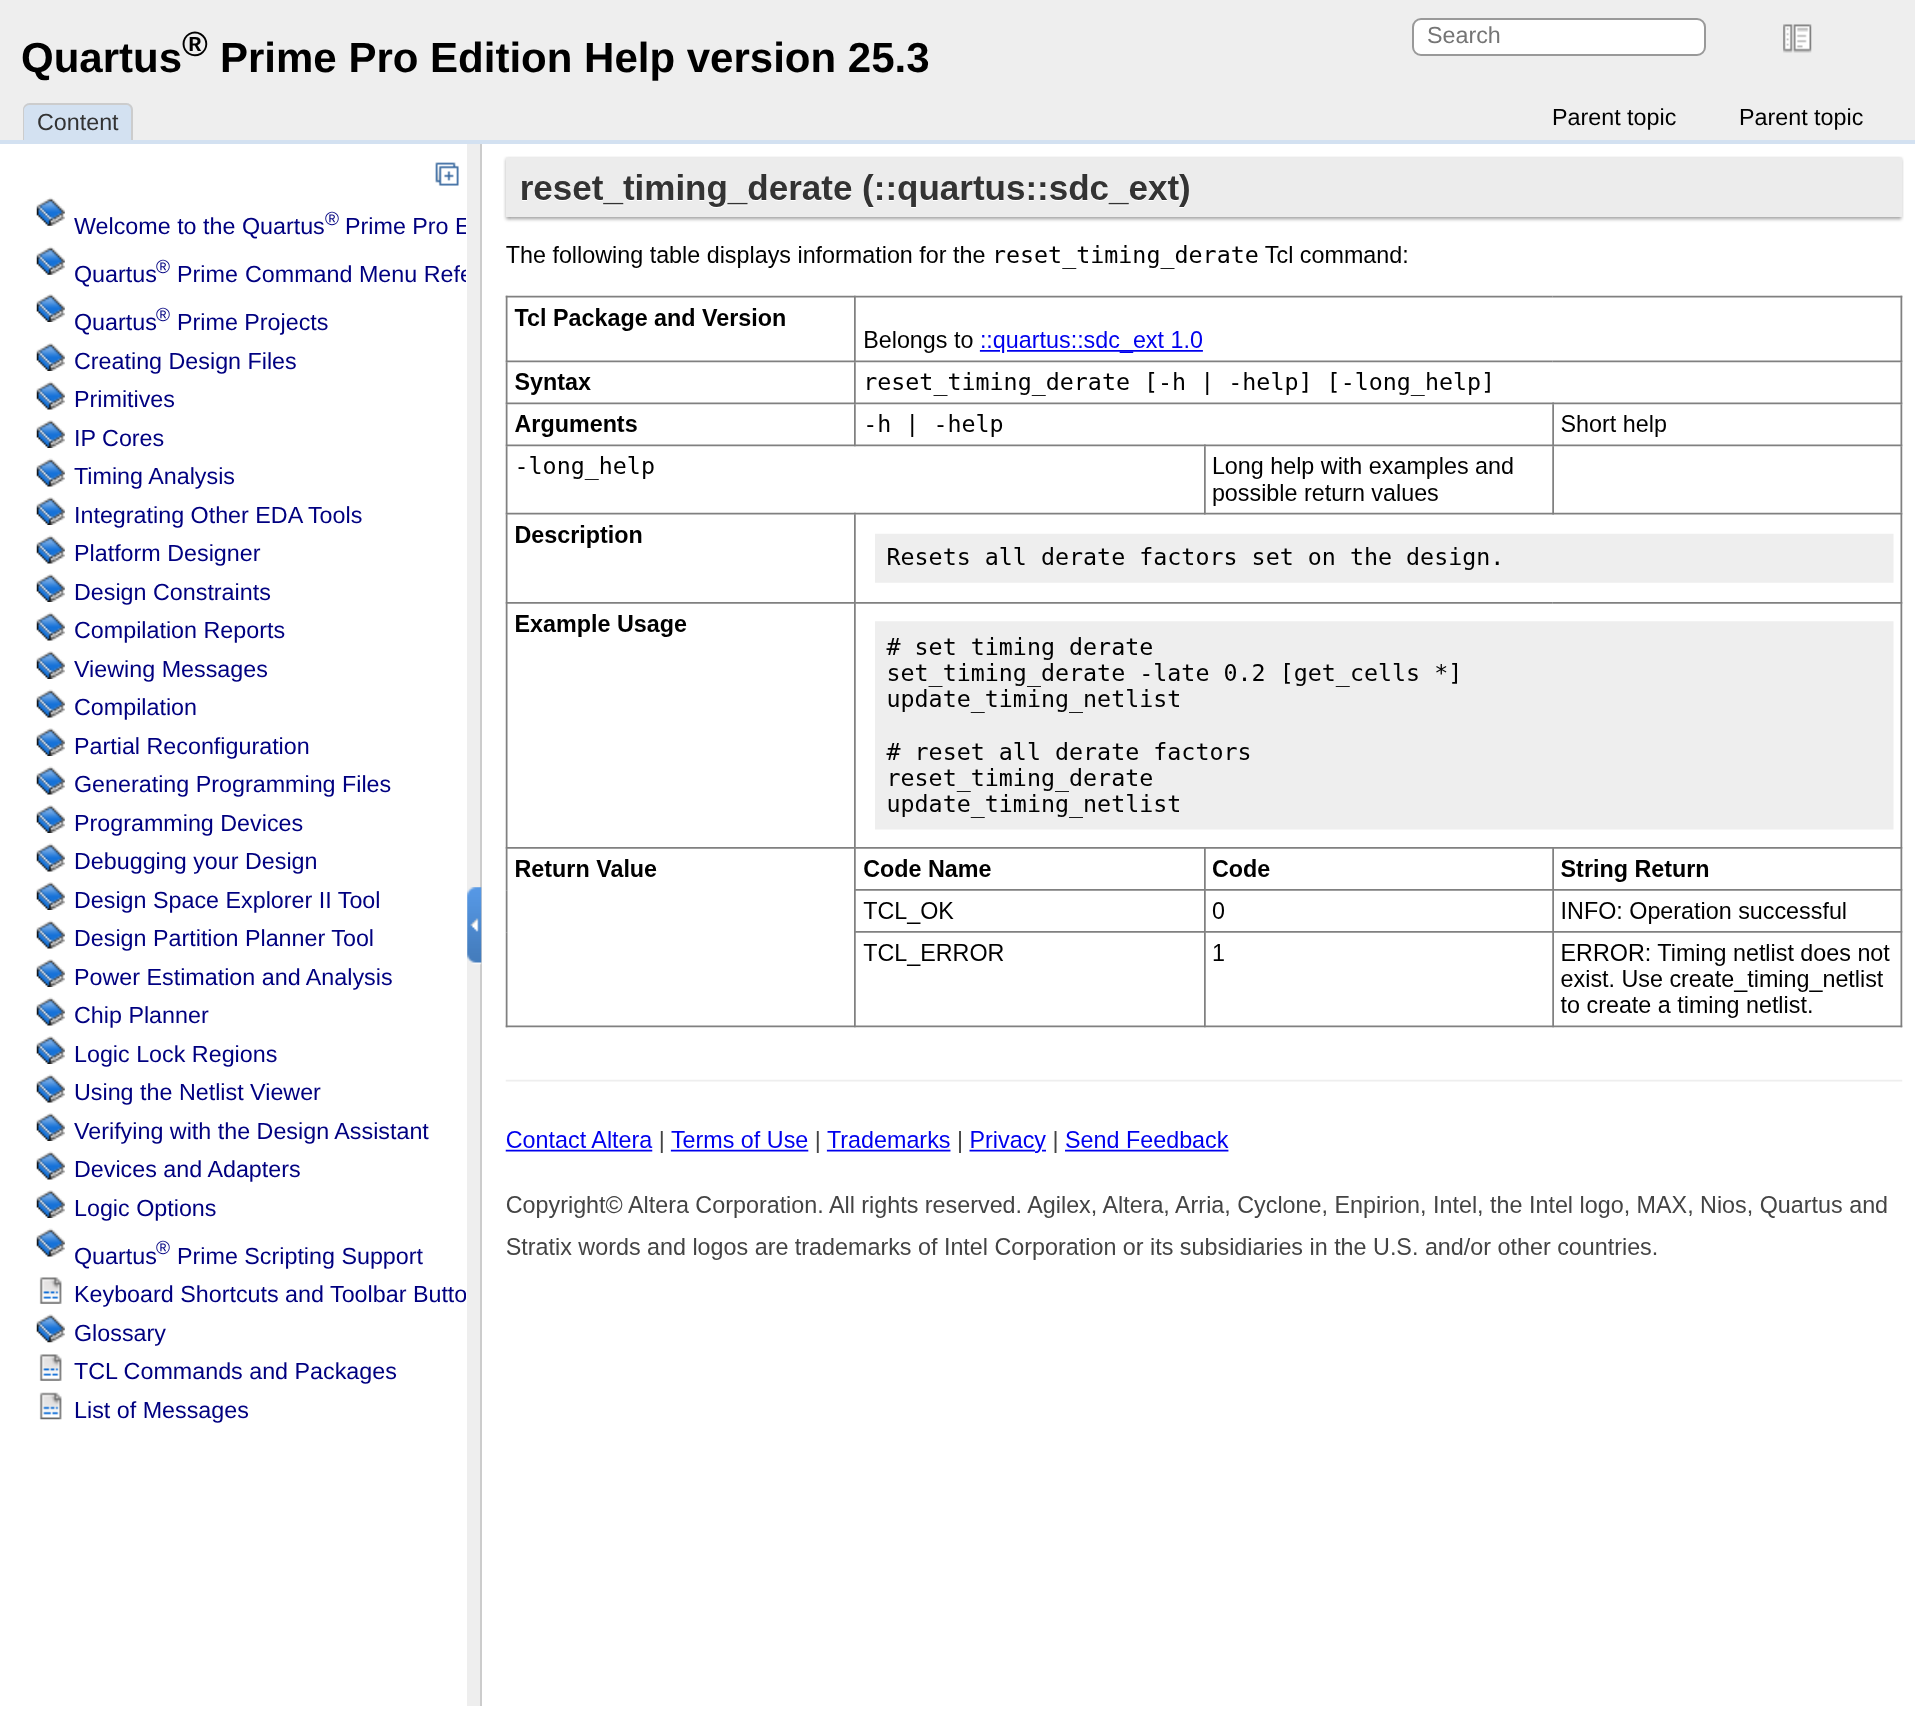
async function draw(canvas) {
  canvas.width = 1915;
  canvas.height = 1710;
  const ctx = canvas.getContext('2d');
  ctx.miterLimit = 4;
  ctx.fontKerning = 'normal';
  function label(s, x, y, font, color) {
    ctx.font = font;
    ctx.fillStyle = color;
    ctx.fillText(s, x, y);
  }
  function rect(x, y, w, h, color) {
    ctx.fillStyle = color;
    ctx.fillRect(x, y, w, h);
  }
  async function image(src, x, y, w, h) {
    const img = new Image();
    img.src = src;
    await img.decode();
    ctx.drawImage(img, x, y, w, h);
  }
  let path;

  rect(0, 0, 1915, 1710, '#fff');
  rect(0, 0, 1915, 140, '#eee');
  label('Quartus', 21, 72, 'bold 42px Liberation Sans', '#000');
  label('®', 182, 56, 'bold 35px Liberation Sans', '#000');
  label('Prime Pro Edition Help version 25.3', 220, 72, 'bold 42px Liberation Sans', '#000');
  ctx.fillStyle = '#fff';
  ctx.beginPath();
  ctx.roundRect(1413, 19, 292, 36, 8);
  ctx.fill();
  ctx.strokeStyle = '#999';
  ctx.lineWidth = 2;
  ctx.stroke();
  label('Search', 1427, 43, '23.3px Liberation Sans', '#757575');
  await image('assets/img1.png', 1783, 24, 29, 29);
  ctx.fillStyle = '#d3e1f1';
  ctx.beginPath();
  ctx.roundRect(23, 103, 110, 37, [7, 7, 0, 0]);
  ctx.fill();
  ctx.fillStyle = '#ccc';
  path = new Path2D('M30 103H126C130 103 133 106 133 110V140H23V110C23 106 26 103 30 103ZM30 105H126C129 105 131 107 131 110V140H24V110C24 107 27 105 30 105Z');
  ctx.fill(path, 'evenodd');
  label('Content', 37, 130, '23.3px Liberation Sans', '#333');
  label('Parent topic', 1552, 125, '23.3px Liberation Sans', '#000');
  label('Parent topic', 1739, 125, '23.3px Liberation Sans', '#000');
  rect(0, 140, 1915, 4, '#d3e1f1');
  await image('assets/img2.png', 435, 162, 24, 24);
  await image('assets/img3.png', 36, 197, 29, 29);
  label('Welcome to the Quartus', 74, 234, '23.3px Liberation Sans', '#000080');
  label('®', 325, 225, '19px Liberation Sans', '#000080');
  ctx.save();
  ctx.beginPath();
  ctx.rect(2, 145, 464, 1563);
  ctx.clip();
  label('Prime Pro E', 345, 234, '23.3px Liberation Sans', '#000080');
  ctx.restore();
  await image('assets/img3.png', 36, 246, 29, 29);
  label('Quartus', 74, 282, '23.3px Liberation Sans', '#000080');
  label('®', 156, 273, '19px Liberation Sans', '#000080');
  label('Prime', 177, 282, '23.3px Liberation Sans', '#000080');
  ctx.save();
  ctx.beginPath();
  ctx.rect(2, 145, 464, 1563);
  ctx.clip();
  label('Command Menu Refe', 245, 282, '23.3px Liberation Sans', '#000080');
  ctx.restore();
  await image('assets/img4.png', 36, 294, 29, 28);
  label('Quartus', 74, 330, '23.3px Liberation Sans', '#000080');
  label('®', 156, 321, '19px Liberation Sans', '#000080');
  label('Prime Projects', 177, 330, '23.3px Liberation Sans', '#000080');
  await image('assets/img4.png', 36, 343, 29, 28);
  label('Creating Design Files', 74, 369, '23.3px Liberation Sans', '#000080');
  await image('assets/img5.png', 36, 381, 29, 29);
  label('Primitives', 74, 407, '23.3px Liberation Sans', '#000080');
  await image('assets/img4.png', 36, 420, 29, 28);
  label('IP Cores', 74, 446, '23.3px Liberation Sans', '#000080');
  await image('assets/img5.png', 36, 458, 29, 29);
  label('Timing Analysis', 74, 484, '23.3px Liberation Sans', '#000080');
  await image('assets/img4.png', 36, 497, 29, 28);
  label('Integrating Other EDA Tools', 74, 523, '23.3px Liberation Sans', '#000080');
  await image('assets/img5.png', 36, 535, 29, 29);
  label('Platform Designer', 74, 561, '23.3px Liberation Sans', '#000080');
  await image('assets/img4.png', 36, 574, 29, 28);
  label('Design Constraints', 74, 600, '23.3px Liberation Sans', '#000080');
  await image('assets/img5.png', 36, 612, 29, 29);
  label('Compilation Reports', 74, 638, '23.3px Liberation Sans', '#000080');
  await image('assets/img4.png', 36, 651, 29, 28);
  label('Viewing Messages', 74, 677, '23.3px Liberation Sans', '#000080');
  await image('assets/img5.png', 36, 689, 29, 29);
  label('Compilation', 74, 715, '23.3px Liberation Sans', '#000080');
  await image('assets/img4.png', 36, 728, 29, 28);
  label('Partial Reconfiguration', 74, 754, '23.3px Liberation Sans', '#000080');
  await image('assets/img5.png', 36, 766, 29, 29);
  label('Generating Programming Files', 74, 792, '23.3px Liberation Sans', '#000080');
  await image('assets/img4.png', 36, 805, 29, 28);
  label('Programming Devices', 74, 831, '23.3px Liberation Sans', '#000080');
  await image('assets/img5.png', 36, 843, 29, 29);
  label('Debugging your Design', 74, 869, '23.3px Liberation Sans', '#000080');
  await image('assets/img4.png', 36, 882, 29, 28);
  label('Design Space Explorer II Tool', 74, 908, '23.3px Liberation Sans', '#000080');
  await image('assets/img5.png', 36, 920, 29, 29);
  label('Design Partition Planner Tool', 74, 946, '23.3px Liberation Sans', '#000080');
  await image('assets/img4.png', 36, 959, 29, 28);
  label('Power Estimation and Analysis', 74, 985, '23.3px Liberation Sans', '#000080');
  await image('assets/img5.png', 36, 997, 29, 29);
  label('Chip Planner', 74, 1023, '23.3px Liberation Sans', '#000080');
  await image('assets/img4.png', 36, 1036, 29, 28);
  label('Logic Lock Regions', 74, 1062, '23.3px Liberation Sans', '#000080');
  await image('assets/img5.png', 36, 1074, 29, 29);
  label('Using the Netlist Viewer', 74, 1100, '23.3px Liberation Sans', '#000080');
  await image('assets/img4.png', 36, 1113, 29, 28);
  label('Verifying with the Design Assistant', 74, 1139, '23.3px Liberation Sans', '#000080');
  await image('assets/img5.png', 36, 1151, 29, 29);
  label('Devices and Adapters', 74, 1177, '23.3px Liberation Sans', '#000080');
  await image('assets/img4.png', 36, 1190, 29, 28);
  label('Logic Options', 74, 1216, '23.3px Liberation Sans', '#000080');
  await image('assets/img5.png', 36, 1228, 29, 29);
  label('Quartus', 74, 1264, '23.3px Liberation Sans', '#000080');
  label('®', 156, 1254, '19px Liberation Sans', '#000080');
  label('Prime Scripting Support', 177, 1264, '23.3px Liberation Sans', '#000080');
  await image('assets/img6.png', 39, 1277, 23, 27);
  ctx.save();
  ctx.beginPath();
  ctx.rect(2, 145, 464, 1563);
  ctx.clip();
  label('Keyboard Shortcuts and Toolbar Butto', 74, 1302, '23.3px Liberation Sans', '#000080');
  ctx.restore();
  await image('assets/img7.png', 36, 1314, 29, 29);
  label('Glossary', 74, 1341, '23.3px Liberation Sans', '#000080');
  await image('assets/img6.png', 39, 1354, 23, 27);
  label('TCL Commands and Packages', 74, 1379, '23.3px Liberation Sans', '#000080');
  await image('assets/img8.png', 39, 1392, 23, 28);
  label('List of Messages', 74, 1418, '23.3px Liberation Sans', '#000080');
  rect(467, 144, 13, 1562, '#eee');
  rect(480, 144, 2, 1562, '#ccc');
  await image('assets/img9.png', 467, 887, 15, 78);
  await image('assets/img10.png', 503, 156, 1401, 1104);
}

draw(document.querySelector('canvas'));
